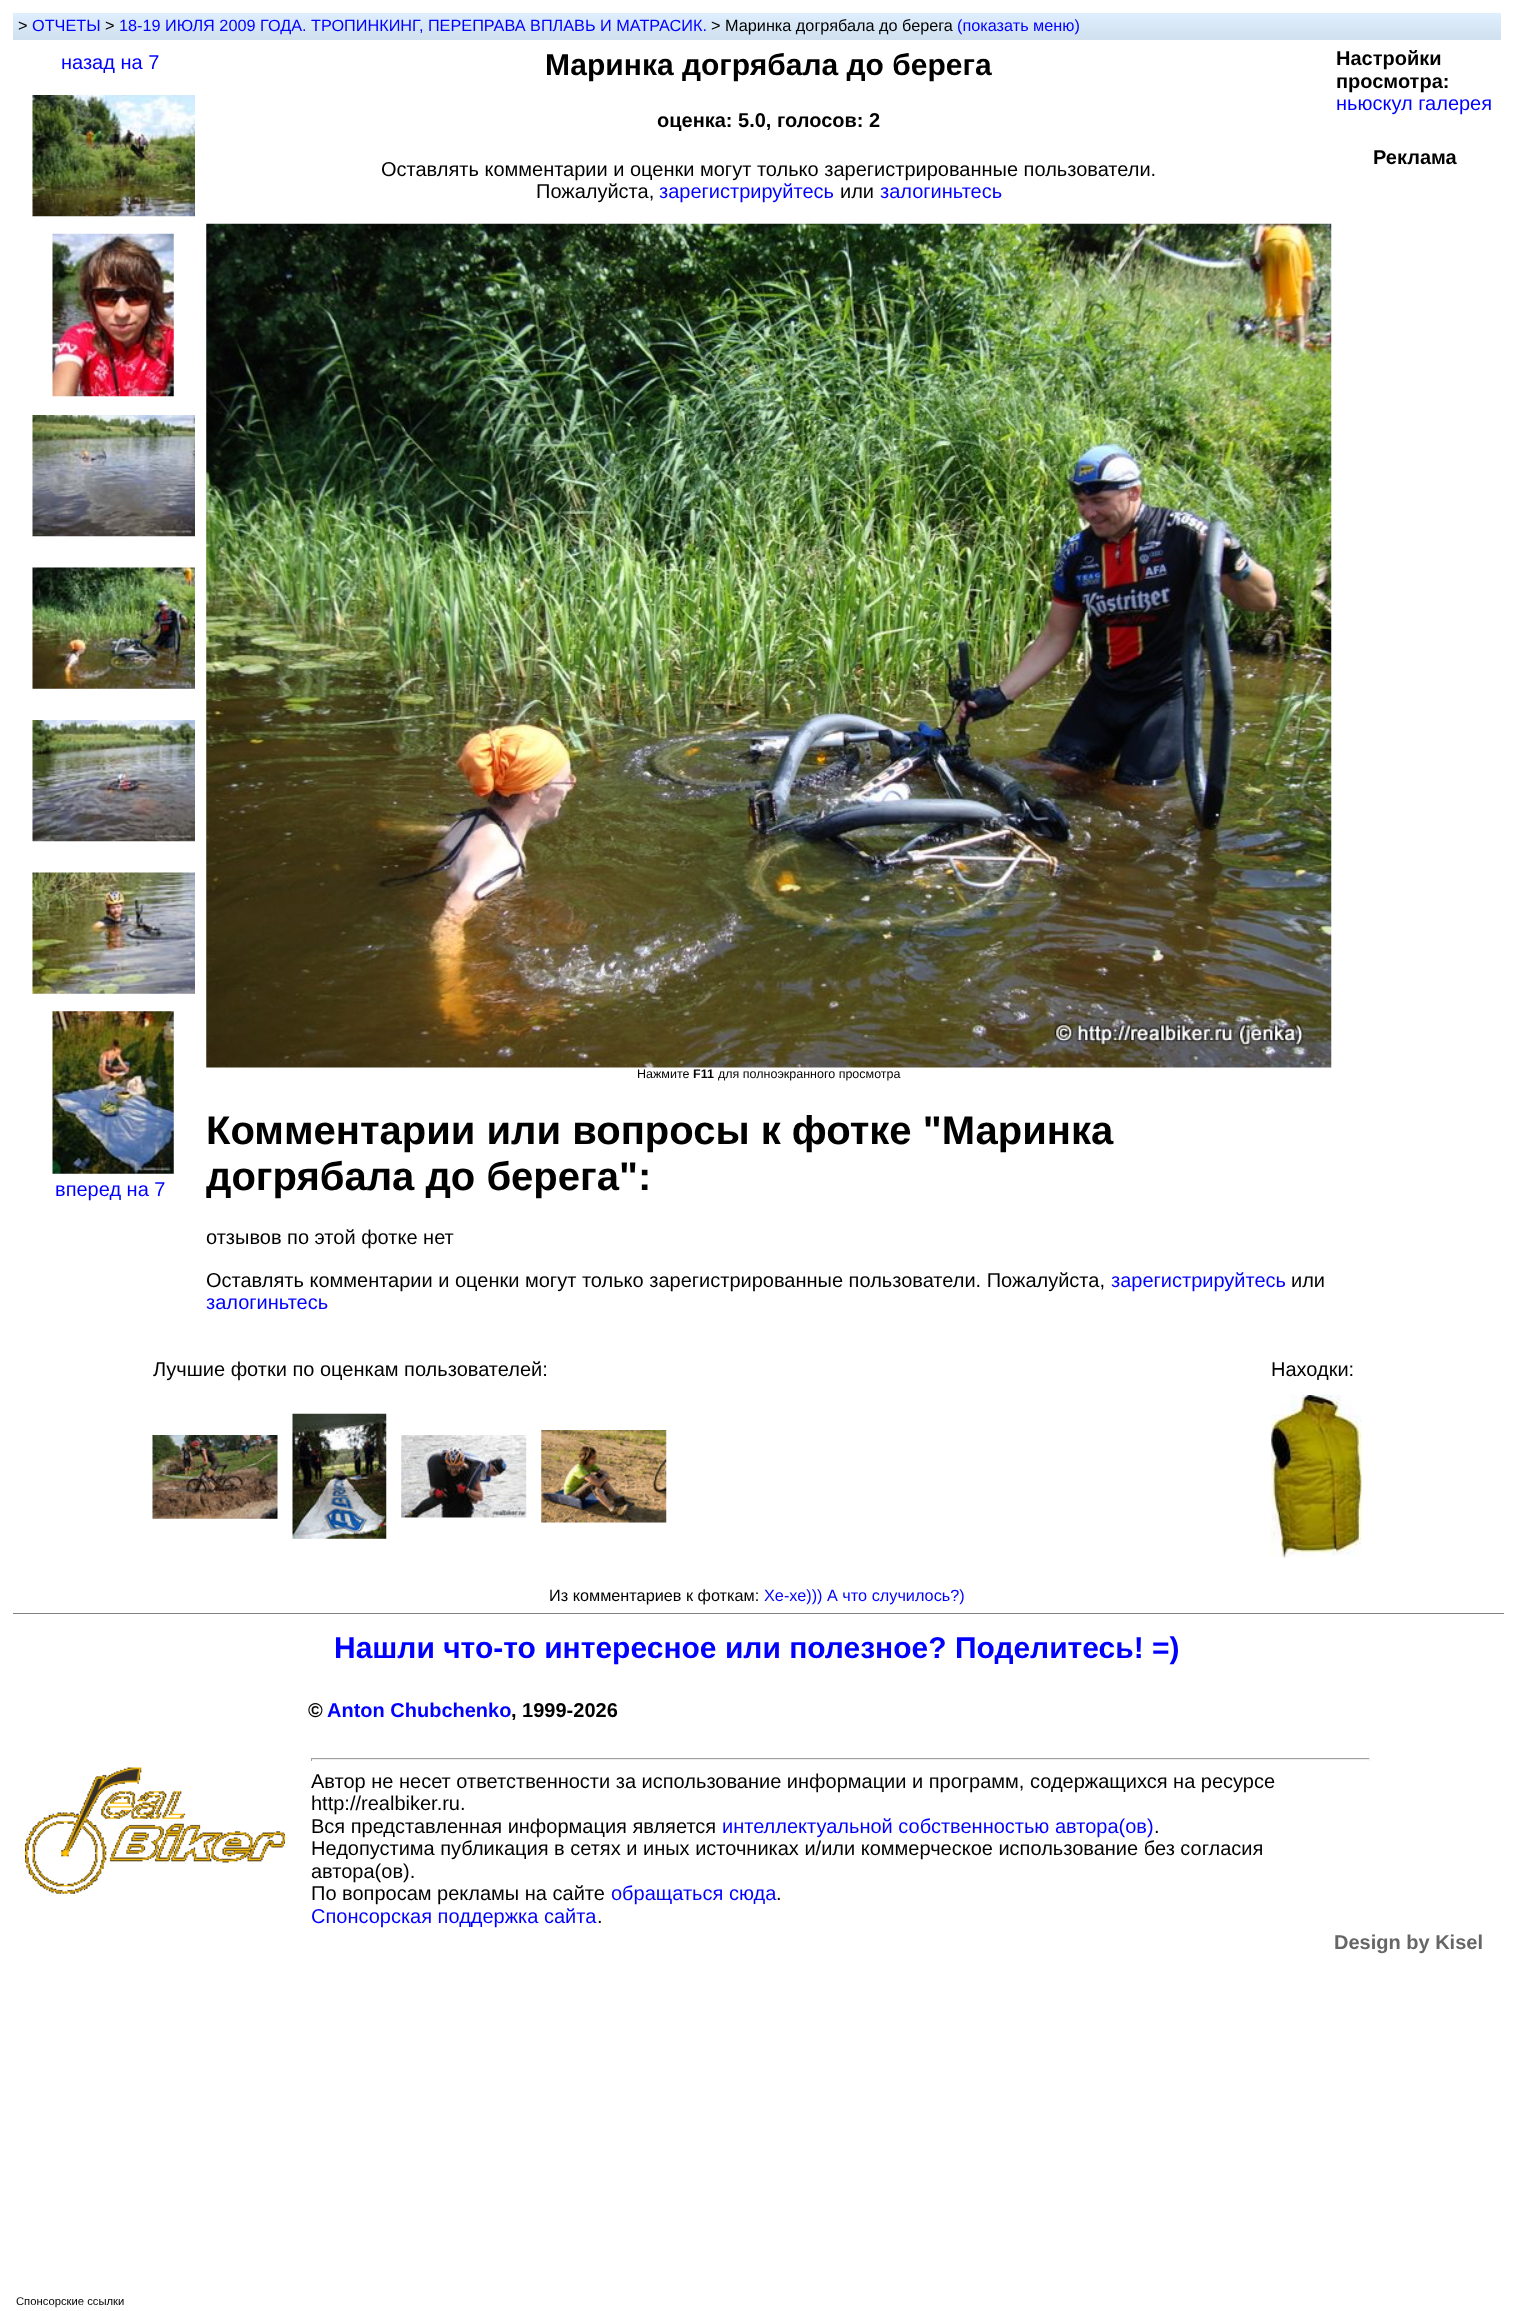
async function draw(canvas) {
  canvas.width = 1513;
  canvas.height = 2311;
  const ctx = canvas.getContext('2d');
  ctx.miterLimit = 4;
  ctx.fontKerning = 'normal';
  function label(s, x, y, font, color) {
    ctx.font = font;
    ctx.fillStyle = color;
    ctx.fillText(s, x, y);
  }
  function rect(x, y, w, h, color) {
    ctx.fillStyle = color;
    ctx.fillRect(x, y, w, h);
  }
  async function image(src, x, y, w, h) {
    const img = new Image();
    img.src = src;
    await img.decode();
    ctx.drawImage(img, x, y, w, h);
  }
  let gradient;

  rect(0, 0, 1513, 2311, '#fff');
  gradient = ctx.createLinearGradient(13, 13, 13, 39);
  gradient.addColorStop(0, '#dfefff');
  gradient.addColorStop(1, '#d0e0ee');
  ctx.fillStyle = gradient;
  ctx.fillRect(13, 13, 1488, 26);
  rect(13, 39, 1488, 1, '#d0e0ee');
  label('>', 18, 31, '16.25px Liberation Sans', '#000');
  label('ОТЧЕТЫ', 32, 31, '16.25px Liberation Sans', '#00f');
  label('>', 105, 31, '16.25px Liberation Sans', '#000');
  label('18-19 ИЮЛЯ 2009 ГОДА. ТРОПИНКИНГ, ПЕРЕПРАВА ВПЛАВЬ И МАТРАСИК.', 119, 31, '16.25px Liberation Sans', '#00f');
  label('> Маринка догрябала до берега', 711, 31, '16.25px Liberation Sans', '#000');
  label('(показать меню)', 957, 31, '16.25px Liberation Sans', '#00f');
  label('назад на 7', 61, 69, '20px Liberation Sans', '#00f');
  await image('assets/img1.png', 32, 95, 163, 122);
  await image('assets/img2.png', 52, 233, 122, 164);
  await image('assets/img3.png', 32, 415, 163, 122);
  await image('assets/img4.png', 32, 567, 163, 122);
  await image('assets/img5.png', 32, 720, 163, 122);
  await image('assets/img6.png', 32, 872, 163, 122);
  await image('assets/img7.png', 52, 1011, 122, 163);
  label('вперед на 7', 55, 1196, '20px Liberation Sans', '#00f');
  label('Маринка догрябала до берега', 545, 75, 'bold 30px Liberation Sans', '#000');
  label('оценка: 5.0, голосов: 2', 657, 127, 'bold 20px Liberation Sans', '#000');
  label('Оставлять комментарии и оценки могут только зарегистрированные пользователи.', 381, 176, '20px Liberation Sans', '#000');
  label('Пожалуйста,', 536, 198, '20px Liberation Sans', '#000');
  label('зарегистрируйтесь', 659, 198, '20px Liberation Sans', '#00f');
  label('или', 840, 198, '20px Liberation Sans', '#000');
  label('залогиньтесь', 880, 198, '20px Liberation Sans', '#00f');
  await image('assets/img8.png', 206, 223, 1126, 845);
  label('Нажмите', 637, 1078, '12.5px Liberation Sans', '#000');
  label('F11', 693, 1078, 'bold 12.5px Liberation Sans', '#000');
  label('для полноэкранного просмотра', 718, 1078, '12.5px Liberation Sans', '#000');
  label('Комментарии или вопросы к фотке "Маринка', 206, 1144, 'bold 40px Liberation Sans', '#000');
  label('догрябала до берега":', 206, 1190, 'bold 40px Liberation Sans', '#000');
  label('отзывов по этой фотке нет', 206, 1244, '20px Liberation Sans', '#000');
  label('Оставлять комментарии и оценки могут только зарегистрированные пользователи. Пожалуйста,', 206, 1287, '20px Liberation Sans', '#000');
  label('зарегистрируйтесь', 1111, 1287, '20px Liberation Sans', '#00f');
  label('или', 1291, 1287, '20px Liberation Sans', '#000');
  label('залогиньтесь', 206, 1309, '20px Liberation Sans', '#00f');
  label('Настройки', 1336, 65, 'bold 20px Liberation Sans', '#000');
  label('просмотра:', 1336, 88, 'bold 20px Liberation Sans', '#000');
  label('ньюскул галерея', 1336, 110, '20px Liberation Sans', '#00f');
  label('Реклама', 1373, 164, 'bold 20px Liberation Sans', '#000');
  label('Спонсорские ссылки', 16, 2305, '11.25px Liberation Sans', '#000');
  label('Лучшие фотки по оценкам пользователей:', 153, 1376, '20px Liberation Sans', '#000');
  label('Находки:', 1271, 1376, '20px Liberation Sans', '#000');
  await image('assets/img9.png', 152, 1435, 126, 84);
  await image('assets/img10.png', 292, 1413, 95, 126);
  await image('assets/img11.png', 401, 1435, 126, 83);
  await image('assets/img12.png', 541, 1430, 126, 93);
  await image('assets/img13.png', 1271, 1395, 91, 163);
  label('Из комментариев к фоткам:', 549, 1601, '16.25px Liberation Sans', '#000');
  label('Хе-хе))) А что случилось?)', 764, 1601, '16.25px Liberation Sans', '#00f');
  rect(13, 1613, 1491, 1, '#808080');
  label('Нашли что-то интересное или полезное? Поделитесь! =)', 334, 1658, 'bold 30px Liberation Sans', '#00f');
  await image('assets/img14.png', 25, 1767, 260, 127);
  label('©', 308, 1717, 'bold 20px Liberation Sans', '#000');
  label('Anton Chubchenko', 327, 1717, 'bold 20px Liberation Sans', '#00f');
  label(', 1999-2026', 511, 1717, 'bold 20px Liberation Sans', '#000');
  rect(311, 1758, 1059, 1, '#9f9f9f');
  rect(1369, 1758, 1, 3, '#eee');
  rect(311, 1759, 1059, 1, '#eee');
  rect(311, 1758, 1, 3, '#9f9f9f');
  label('Автор не несет ответственности за использование информации и программ, содержащихся на ресурсе', 311, 1788, '20px Liberation Sans', '#000');
  label('http://realbiker.ru.', 311, 1810, '20px Liberation Sans', '#000');
  label('Вся представленная информация является', 311, 1833, '20px Liberation Sans', '#000');
  label('интеллектуальной собственностью автора(ов)', 722, 1833, '20px Liberation Sans', '#00f');
  label('.', 1154, 1833, '20px Liberation Sans', '#000');
  label('Недопустима публикация в сетях и иных источниках и/или коммерческое использование без согласия', 311, 1855, '20px Liberation Sans', '#000');
  label('автора(ов).', 311, 1878, '20px Liberation Sans', '#000');
  label('По вопросам рекламы на сайте', 311, 1900, '20px Liberation Sans', '#000');
  label('обращаться сюда', 611, 1900, '20px Liberation Sans', '#00f');
  label('.', 776, 1900, '20px Liberation Sans', '#000');
  label('Спонсорская поддержка сайта', 311, 1923, '20px Liberation Sans', '#00f');
  label('.', 597, 1923, '20px Liberation Sans', '#000');
  label('Design by Kisel', 1334, 1949, 'bold 20px Liberation Sans', '#666');
}

draw(document.querySelector('canvas'));
